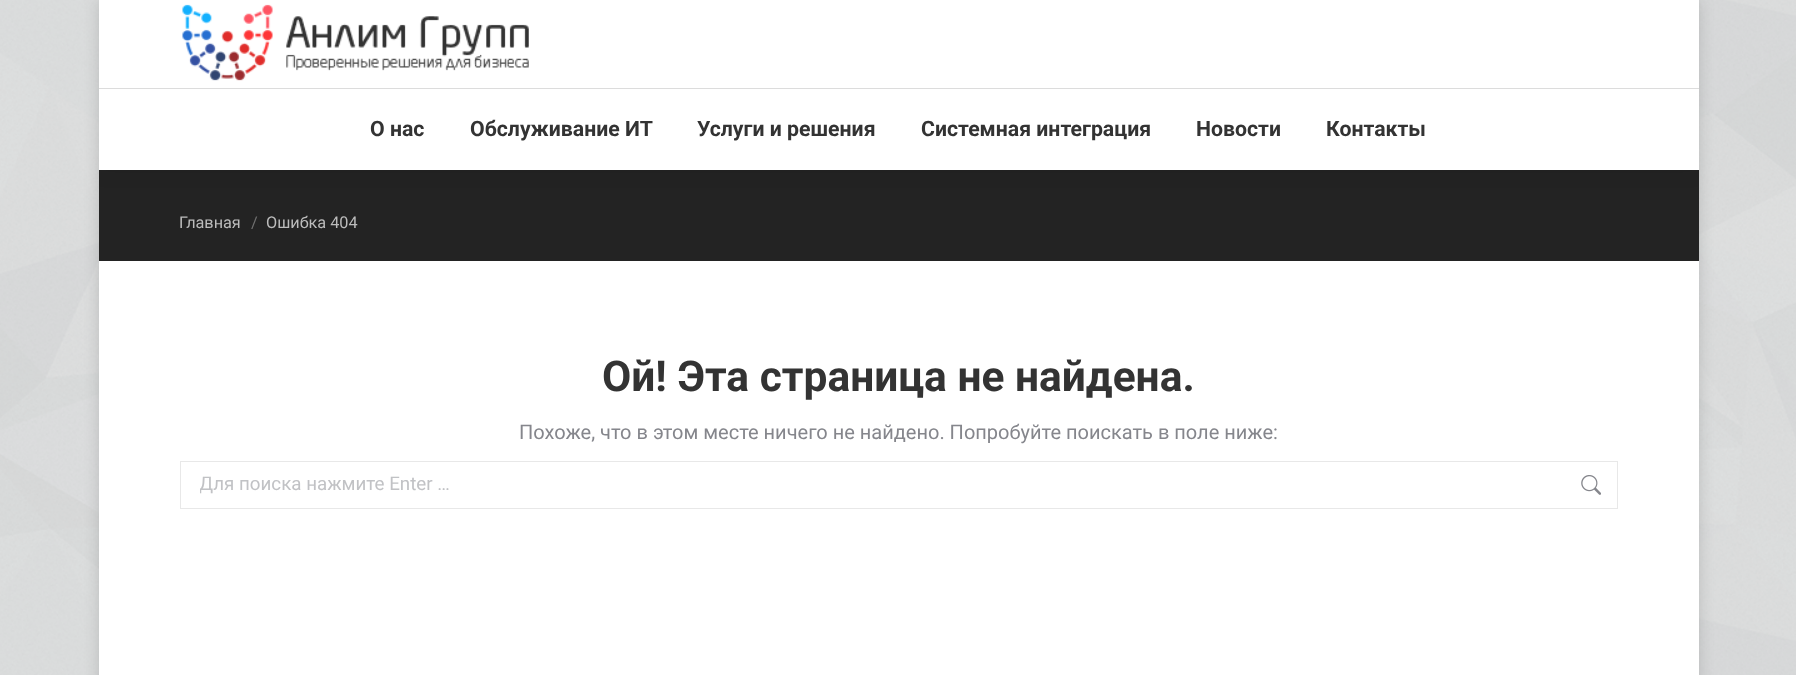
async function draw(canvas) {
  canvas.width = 1796;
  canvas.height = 675;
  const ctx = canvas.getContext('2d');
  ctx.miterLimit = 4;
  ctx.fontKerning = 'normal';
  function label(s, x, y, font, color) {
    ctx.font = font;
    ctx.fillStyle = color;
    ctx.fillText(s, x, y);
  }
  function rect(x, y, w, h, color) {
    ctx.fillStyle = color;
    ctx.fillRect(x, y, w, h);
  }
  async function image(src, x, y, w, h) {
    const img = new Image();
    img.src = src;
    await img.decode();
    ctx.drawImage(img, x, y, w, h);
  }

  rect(0, 0, 1796, 675, '#fff');
  await image('assets/img1.png', 0, 0, 1796, 675);
  ctx.fillStyle = '#00000026';
  ctx.filter = 'blur(7.5px)';
  ctx.beginPath();
  ctx.rect(99, 0, 1600, 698);
  ctx.fill();
  ctx.filter = 'none';
  rect(99, 261, 1600, 414, '#fff');
  rect(99, 170, 1600, 91, '#232323');
  ctx.save();
  ctx.beginPath();
  ctx.rect(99, 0, 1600, 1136);
  ctx.clip();
  ctx.fillStyle = '#00000012';
  ctx.filter = 'blur(9.5px)';
  ctx.beginPath();
  ctx.rect(98, -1, 1602, 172);
  ctx.fill();
  ctx.filter = 'none';
  ctx.restore();
  rect(99, 0, 1600, 170, '#fff');
  await image('assets/img2.png', 182, 4, 347, 77);
  rect(99, 88, 1600, 1, '#dcdcdc');
  label('О нас', 370, 136, 'bold 21.25px Roboto', '#333');
  label('Обслуживание ИТ', 470, 136, 'bold 21.25px Roboto', '#333');
  label('Услуги и решения', 697, 136, 'bold 21.25px Roboto', '#333');
  label('Системная интеграция', 921, 136, 'bold 21.25px Roboto', '#333');
  label('Новости', 1196, 136, 'bold 21.25px Roboto', '#333');
  label('Контакты', 1326, 136, 'bold 21.25px Roboto', '#333');
  label('Главная', 179, 228, '16.25px Roboto', '#bcbcbc');
  label('/', 251, 228, '16.25px Roboto', '#707070');
  label('Ошибка 404', 266, 228, '16.25px Roboto', '#bcbcbc');
  label('Ой! Эта страница не найдена.', 602, 391, 'bold 42.5px Roboto', '#333');
  label('Похоже, что в этом месте ничего не найдено. Попробуйте поискать в поле ниже:', 519, 439, '20px Roboto', '#85868c');
  ctx.strokeStyle = '#e8e8e8';
  ctx.strokeRect(180.5, 461.5, 1437, 47);
  ctx.save();
  ctx.beginPath();
  ctx.rect(200, 473, 1379, 22);
  ctx.clip();
  label('Для поиска нажмите Enter …', 199, 490, '18.75px Roboto', '#c1c2c5');
  ctx.restore();
  await image('assets/img3.png', 1581, 475, 20, 20);
}

draw(document.querySelector('canvas'));
